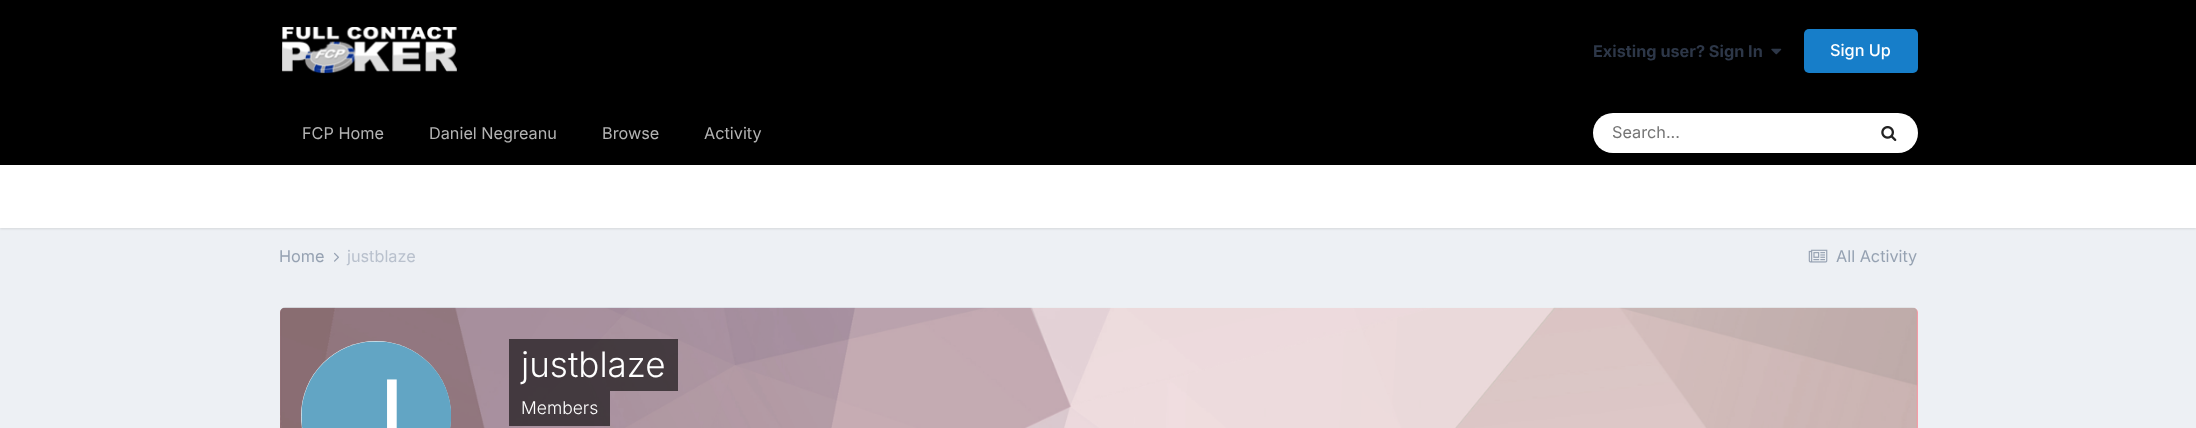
async function draw(canvas) {
  canvas.width = 2196;
  canvas.height = 428;
  const ctx = canvas.getContext('2d');
  ctx.miterLimit = 4;
  ctx.fontKerning = 'normal';
  function label(s, x, y, font, color) {
    ctx.font = font;
    ctx.fillStyle = color;
    ctx.fillText(s, x, y);
  }
  function rect(x, y, w, h, color) {
    ctx.fillStyle = color;
    ctx.fillRect(x, y, w, h);
  }
  function roundedRect(x, y, w, h, r, color) {
    ctx.fillStyle = color;
    ctx.beginPath();
    ctx.roundRect(x, y, w, h, r);
    ctx.fill();
  }
  async function image(src, x, y, w, h) {
    const img = new Image();
    img.src = src;
    await img.decode();
    ctx.drawImage(img, x, y, w, h);
  }
  let path;

  rect(0, 0, 2196, 428, '#edf0f4');
  rect(0, 0, 2196, 165, '#000');
  await image('assets/img1.png', 282, 27, 175, 47);
  label('Existing user? Sign In', 1593, 57, 'bold 16.25px Inter', '#2d3748');
  await image('assets/img2.png', 1771, 48, 11, 7);
  roundedRect(1804, 29, 114, 44, 5, '#177ec9');
  label('Sign Up', 1830, 56, '500 16.25px Inter', '#fff');
  label('FCP Home', 302, 139, '16.25px Inter', '#b3b3b3');
  label('Daniel Negreanu', 429, 139, '16.25px Inter', '#b3b3b3');
  label('Browse', 602, 139, '16.25px Inter', '#b3b3b3');
  label('Activity', 704, 139, '16.25px Inter', '#b3b3b3');
  roundedRect(1593, 113, 325, 40, 20, '#fff');
  label('Search...', 1612, 138, '16.25px Inter', '#757575');
  await image('assets/img3.png', 1881, 126, 16, 16);
  ctx.fillStyle = '#0000001a';
  ctx.filter = 'blur(1px)';
  ctx.beginPath();
  ctx.rect(0, 166, 2196, 63);
  ctx.fill();
  ctx.filter = 'none';
  rect(0, 165, 2196, 63, '#fff');
  label('Home', 279, 262, '16.25px Inter', '#96a2b2');
  await image('assets/img4.png', 334, 252, 5, 10);
  label('justblaze', 347, 262, '16.25px Inter', '#b9c1cd');
  await image('assets/img5.png', 1808, 249, 20, 14);
  label('All Activity', 1836, 262, '16.25px Inter', '#96a2b2');
  ctx.fillStyle = '#f9a';
  path = new Path2D('M285 308H1913C1916 308 1918 310 1918 313V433H280V313C280 310 282 308 285 308Z');
  ctx.fill(path);
  await image('assets/img6.png', 280, 307, 1638, 121);
  ctx.fillStyle = '#fff';
  ctx.beginPath();
  ctx.arc(376, 416, 75, 0, 2 * Math.PI);
  ctx.fill();
  await image('assets/img7.png', 301, 341, 150, 87);
  rect(509, 339, 169, 52, '#00000099');
  label('justblaze', 521, 377, '300 35px Inter', '#fff');
  rect(509, 391, 101, 35, '#00000099');
  label('Members', 521, 414, '300 17.5px Inter', '#fff');
}

draw(document.querySelector('canvas'));
